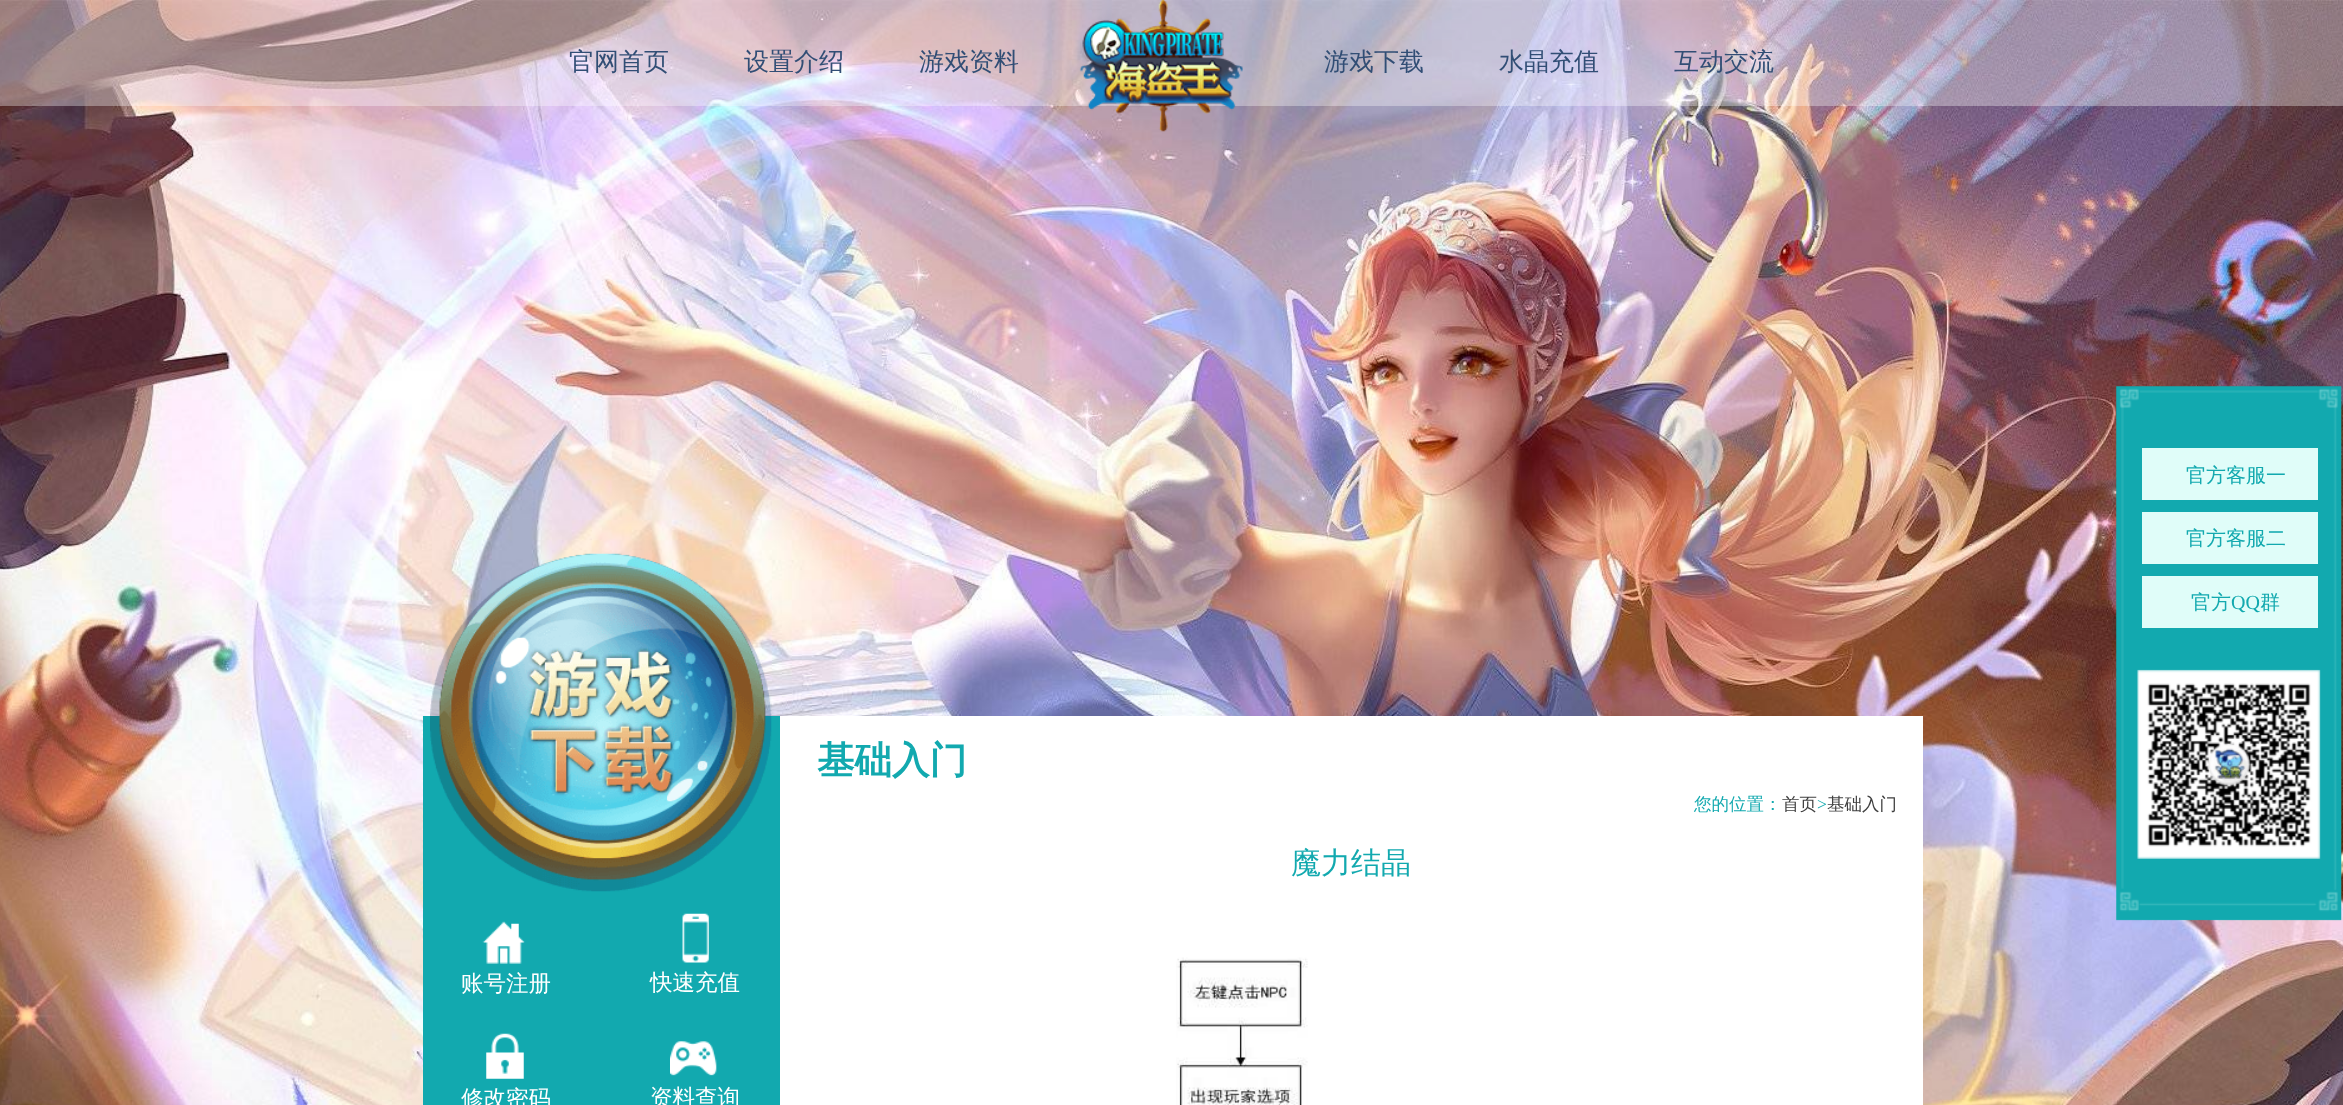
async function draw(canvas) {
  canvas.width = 2343;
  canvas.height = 1105;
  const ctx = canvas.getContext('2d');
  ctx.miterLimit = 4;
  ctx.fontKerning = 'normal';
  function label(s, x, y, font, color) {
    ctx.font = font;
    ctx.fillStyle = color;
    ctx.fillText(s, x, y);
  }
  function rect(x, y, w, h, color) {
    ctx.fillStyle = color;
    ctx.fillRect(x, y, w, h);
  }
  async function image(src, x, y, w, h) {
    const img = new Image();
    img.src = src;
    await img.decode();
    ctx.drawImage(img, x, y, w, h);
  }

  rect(0, 0, 2343, 1105, '#fff');
  await image('assets/img1.png', 0, 0, 2343, 1105);
  rect(0, 0, 2343, 106, '#ffffff57');
  label('官网首页', 569, 70, '500 25px WenQuanYi Zen Hei', '#314e75');
  label('设置介绍', 744, 70, '500 25px WenQuanYi Zen Hei', '#314e75');
  label('游戏资料', 919, 70, '500 25px WenQuanYi Zen Hei', '#314e75');
  await image('assets/img2.png', 1079, 0, 164, 132);
  label('游戏下载', 1324, 70, '500 25px WenQuanYi Zen Hei', '#314e75');
  label('水晶充值', 1499, 70, '500 25px WenQuanYi Zen Hei', '#314e75');
  label('互动交流', 1674, 70, '500 25px WenQuanYi Zen Hei', '#314e75');
  rect(780, 716, 1143, 389, '#fff');
  label('基础入门', 817, 773, 'bold 37.5px WenQuanYi Zen Hei', '#12a9af');
  label('您的位置：', 1694, 810, '500 17.5px WenQuanYi Zen Hei', '#12a9af');
  label('首页', 1782, 810, '500 17.5px WenQuanYi Zen Hei', '#3f3f3f');
  label('>', 1817, 810, '17.5px Liberation Serif', '#12a9af');
  label('基础入门', 1827, 810, '500 17.5px WenQuanYi Zen Hei', '#3f3f3f');
  label('魔力结晶', 1291, 873, '500 30px WenQuanYi Zen Hei', '#12a9af');
  await image('assets/img3.png', 1176, 957, 132, 148);
  rect(423, 716, 357, 389, '#12a9af');
  await image('assets/img4.png', 430, 553, 342, 339);
  await image('assets/img5.png', 482, 921, 43, 43);
  label('账号注册', 461, 991, '500 22.5px WenQuanYi Zen Hei', '#fff');
  await image('assets/img6.png', 682, 913, 27, 50);
  label('快速充值', 650, 990, '500 22.5px WenQuanYi Zen Hei', '#fff');
  await image('assets/img7.png', 486, 1033, 38, 46);
  label('修改密码', 461, 1106, '500 22.5px WenQuanYi Zen Hei', '#fff');
  await image('assets/img8.png', 670, 1041, 47, 35);
  label('资料查询', 650, 1105, '500 22.5px WenQuanYi Zen Hei', '#fff');
  await image('assets/img9.png', 2116, 386, 226, 535);
  rect(2142, 448, 176, 52, '#e0fdf9');
  label('官方客服一', 2186, 482, '500 20px WenQuanYi Zen Hei', '#12a9af');
  rect(2142, 512, 176, 52, '#e0fdf9');
  label('官方客服二', 2186, 545, '500 20px WenQuanYi Zen Hei', '#12a9af');
  rect(2142, 576, 176, 52, '#e0fdf9');
  label('官方', 2191, 609, '500 20px WenQuanYi Zen Hei', '#12a9af');
  label('QQ', 2231, 609, '20px Liberation Serif', '#12a9af');
  label('群', 2260, 609, '500 20px WenQuanYi Zen Hei', '#12a9af');
}

draw(document.querySelector('canvas'));
